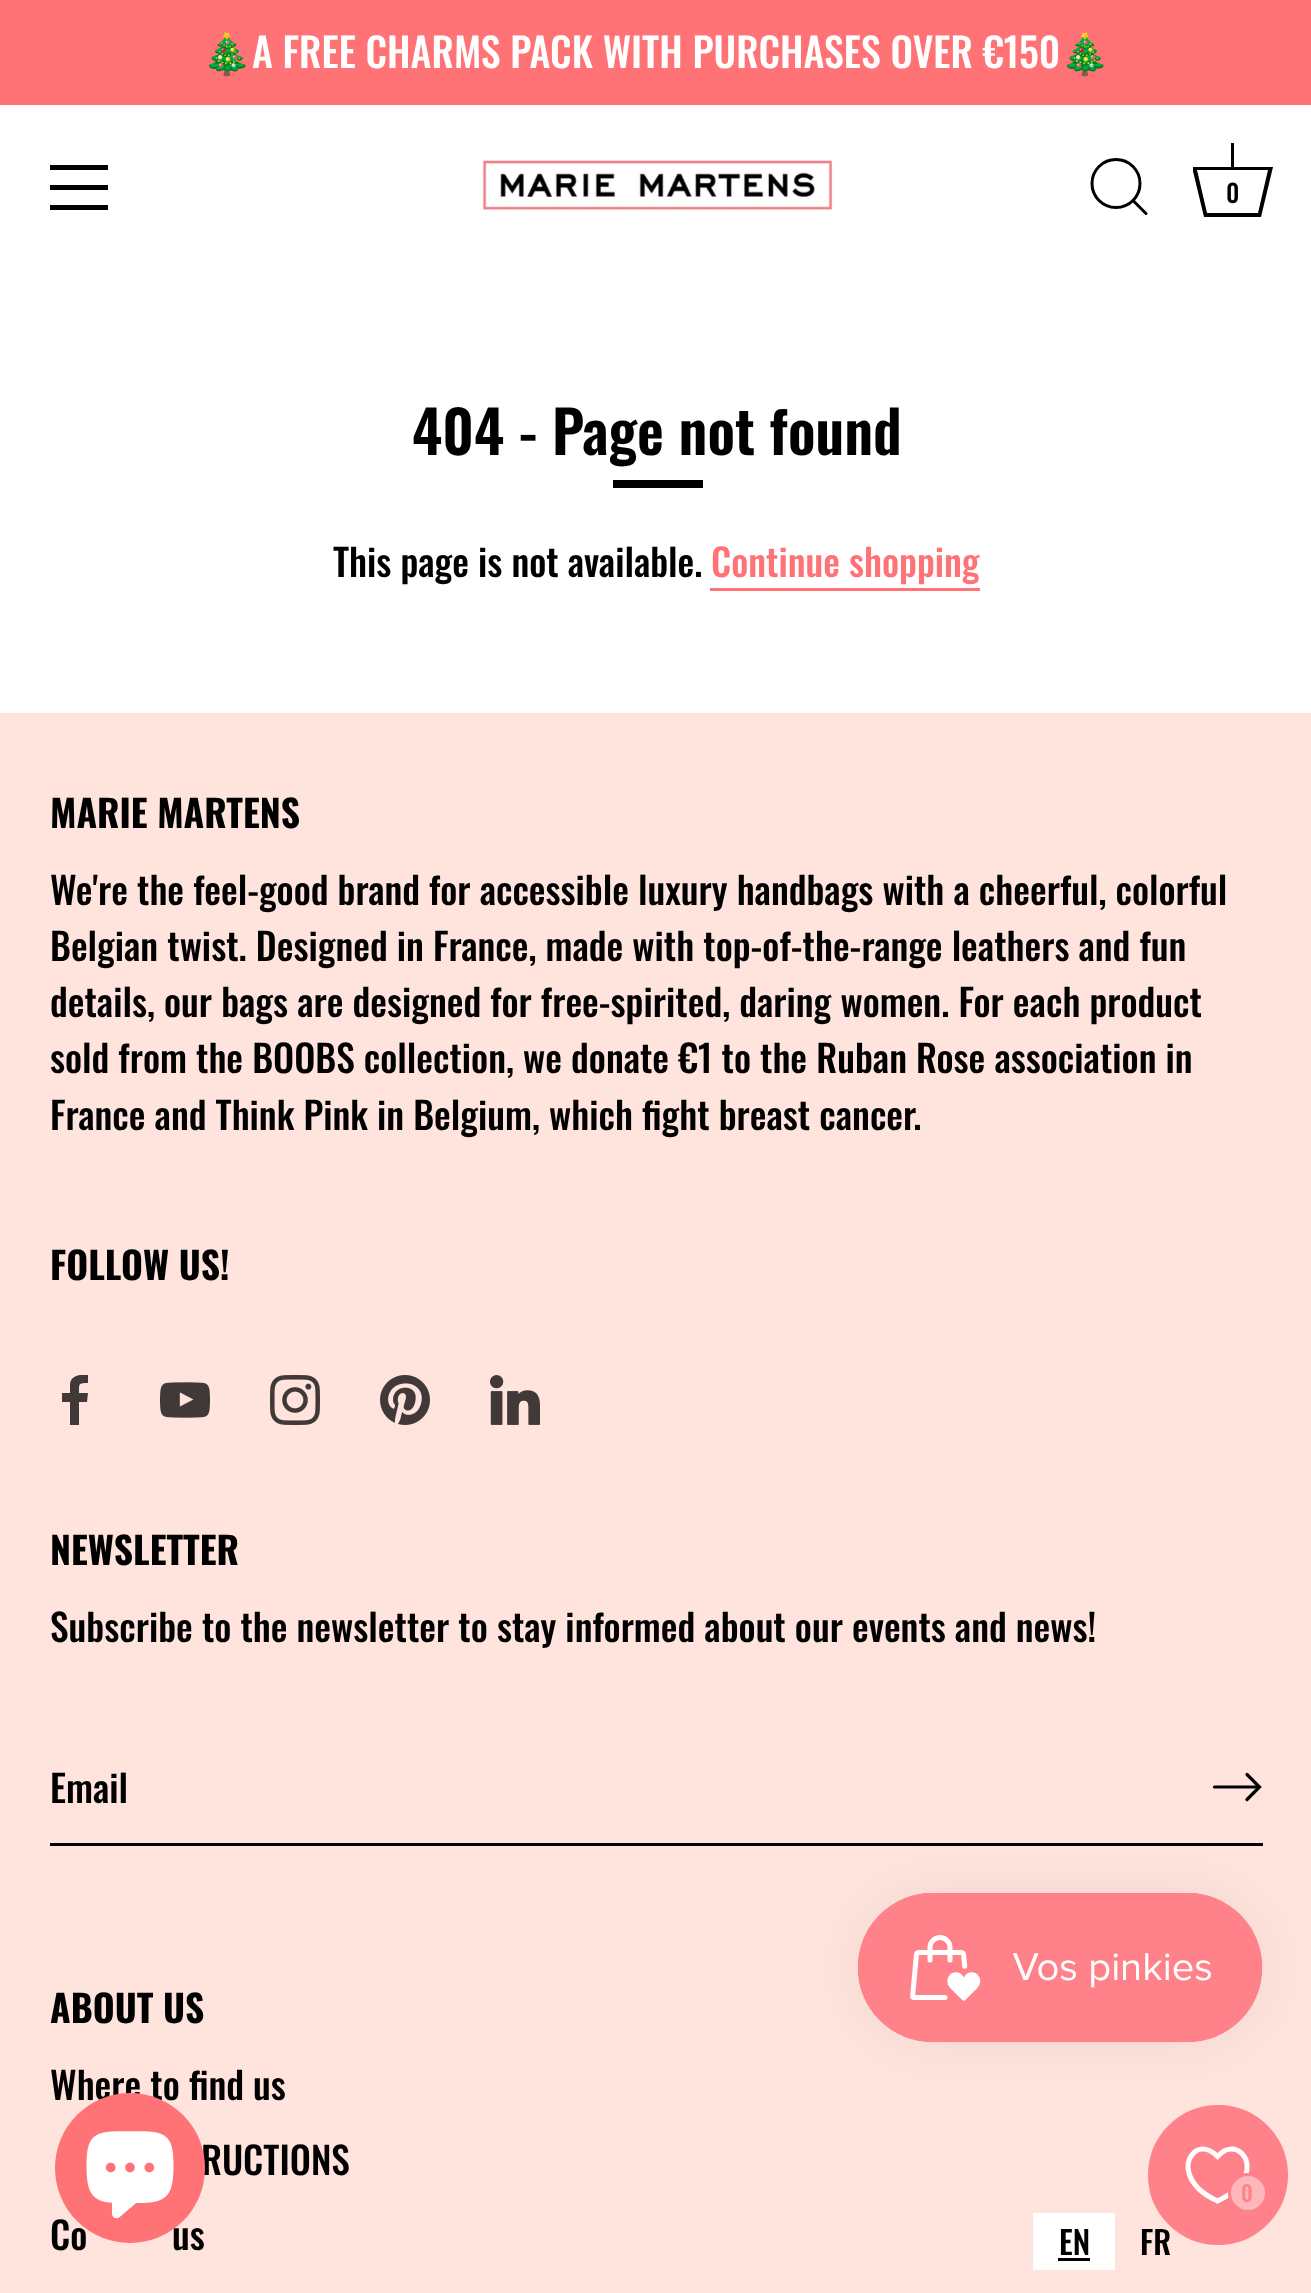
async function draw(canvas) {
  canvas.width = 1311;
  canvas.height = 2293;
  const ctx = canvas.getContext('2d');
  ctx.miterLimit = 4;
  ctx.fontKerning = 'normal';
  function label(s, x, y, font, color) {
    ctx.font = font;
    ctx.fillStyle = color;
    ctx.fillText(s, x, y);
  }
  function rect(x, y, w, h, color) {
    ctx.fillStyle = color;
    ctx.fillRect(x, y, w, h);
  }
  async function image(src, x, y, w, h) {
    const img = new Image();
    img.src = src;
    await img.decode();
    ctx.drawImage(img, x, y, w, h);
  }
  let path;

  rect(0, 0, 1311, 2293, '#fff');
  rect(0, 0, 1311, 105, '#ff7376');
  label('🎄', 202, 68, '40px Noto Color Emoji', '#fff');
  label('A FREE CHARMS PACK WITH PURCHASES OVER €150', 252, 68, '500 40px Oswald', '#fff');
  label('🎄', 1060, 68, '40px Noto Color Emoji', '#fff');
  rect(50, 165, 58, 5, '#000');
  rect(50, 185, 58, 5, '#000');
  rect(50, 205, 58, 5, '#000');
  await image('assets/img1.png', 482, 160, 351, 50);
  ctx.beginPath();
  ctx.arc(1116, 183.5, 24, 0, 2 * Math.PI);
  ctx.strokeStyle = '#000';
  ctx.lineWidth = 3;
  ctx.stroke();
  path = new Path2D('M1146 213.5L1133 200.5');
  ctx.lineCap = 'round';
  ctx.lineJoin = 'round';
  ctx.stroke(path);
  rect(1231, 143, 3, 24, '#000');
  ctx.save();
  ctx.beginPath();
  ctx.rect(1193, 140, 80, 80);
  ctx.clip();
  path = new Path2D('M1268 170L1258 213H1207L1197 170H1268M1273 167H1192L1204 217H1261Z');
  ctx.fill(path);
  ctx.restore();
  label('0', 1226, 203, '500 25px Oswald', '#000');
  label('404 - Page not found', 412, 455, '600 58.5px Oswald', '#000');
  rect(613, 480, 90, 8, '#000');
  label('This page is not available.', 333, 577, '500 37.5px Oswald', '#000');
  label('Continue shopping', 711, 577, '500 37.5px Oswald', '#ff7276');
  rect(710, 588, 270, 3, '#ff7276');
  rect(0, 713, 1311, 1580, '#ffe4de');
  label('MARIE MARTENS', 50, 828, 'bold 37.5px Oswald', '#000');
  label('We\'re the feel-good brand for accessible luxury handbags with a cheerful, colorful', 50, 905, '500 37.5px Oswald', '#000');
  label('Belgian twist. Designed in France, made with top-of-the-range leathers and fun', 50, 961, '500 37.5px Oswald', '#000');
  label('details, our bags are designed for free-spirited, daring women. For each product', 50, 1017, '500 37.5px Oswald', '#000');
  label('sold from the BOOBS collection, we donate €1 to the Ruban Rose association in', 50, 1073, '500 37.5px Oswald', '#000');
  label('France and Think Pink in Belgium, which fight breast cancer.', 50, 1130, '500 37.5px Oswald', '#000');
  label('FOLLOW US!', 50, 1280, 'bold 37.5px Oswald', '#000');
  ctx.save();
  ctx.beginPath();
  ctx.rect(50, 1375, 50, 50);
  ctx.clip();
  ctx.fillStyle = '#403938';
  path = new Path2D('M79 1425V1402H87L88 1393H79C79 1384 78 1383 88 1383V1375C81 1374 71 1375 70 1384V1393H62V1402H70V1425Z');
  ctx.fill(path);
  ctx.restore();
  await image('assets/img2.png', 160, 1382, 50, 36);
  await image('assets/img3.png', 270, 1375, 50, 50);
  await image('assets/img4.png', 380, 1375, 50, 50);
  await image('assets/img5.png', 490, 1375, 50, 50);
  label('NEWSLETTER', 50, 1565, 'bold 37.5px Oswald', '#000');
  label('Subscribe to the newsletter to stay informed about our events and news!', 50, 1642, '500 37.5px Oswald', '#000');
  rect(50, 1843, 1213, 3, '#000');
  label('Email', 50, 1803, '500 37.5px Oswald', '#000');
  path = new Path2D('M1247 1799.5L1259.5 1787L1247 1774.5');
  ctx.lineWidth = 3.2;
  ctx.lineJoin = 'miter';
  ctx.stroke(path);
  path = new Path2D('M1258 1787H1214.5');
  ctx.lineJoin = 'round';
  ctx.stroke(path);
  label('ABOUT US', 50, 2023, 'bold 37.5px Oswald', '#000');
  label('Where to find us', 50, 2100, '500 37.5px Oswald', '#000');
  label('RUCTIONS', 201, 2175, '500 37.5px Oswald', '#000');
  label('Co', 50, 2250, '500 37.5px Oswald', '#000');
  label('us', 172, 2250, '500 37.5px Oswald', '#000');
  ctx.fillStyle = '#ff8189';
  ctx.beginPath();
  ctx.arc(1218, 2175, 67.5, 0, 2 * Math.PI);
  ctx.fill();
  ctx.strokeStyle = '#ff8189';
  ctx.lineWidth = 5;
  ctx.stroke();
  ctx.fillStyle = '#0000000d';
  ctx.filter = 'blur(31px)';
  ctx.beginPath();
  ctx.roundRect(858, 1893, 405, 150, 75);
  ctx.fill();
  ctx.filter = 'none';
  await image('assets/img6.png', 857, 1892, 406, 151);
  ctx.fillStyle = '#ff7276';
  ctx.beginPath();
  ctx.arc(130, 2168, 75, 0, 2 * Math.PI);
  ctx.fill();
  await image('assets/img7.png', 86, 2131, 88, 88);
  path = new Path2D('M1217.5 2201C1205.5 2195.5 1192.5 2186 1189 2173C1185 2159.5 1195 2144.5 1209.5 2150.5C1213 2152 1215 2154 1217.5 2156.5C1220 2154 1222 2152 1225 2150.5C1238 2145 1248.5 2156.5 1247 2169.5C1245 2184 1230.5 2195 1217.5 2201Z');
  ctx.strokeStyle = '#fff';
  ctx.lineCap = 'butt';
  ctx.lineJoin = 'miter';
  ctx.stroke(path);
  ctx.fillStyle = '#ffb8ba';
  ctx.beginPath();
  ctx.arc(1248, 2193, 18.5, 0, 2 * Math.PI);
  ctx.fill();
  ctx.strokeStyle = '#ff8189';
  ctx.lineWidth = 3;
  ctx.stroke();
  label('0', 1241, 2202, '500 22px Oswald', '#ff8189');
  rect(1033, 2213, 82, 57, '#fff');
  label('EN', 1059, 2255, '500 32px Oswald', '#000');
  rect(1058, 2258, 32, 3, '#000');
  label('FR', 1140, 2255, '500 32px Oswald', '#000');
}

draw(document.querySelector('canvas'));
